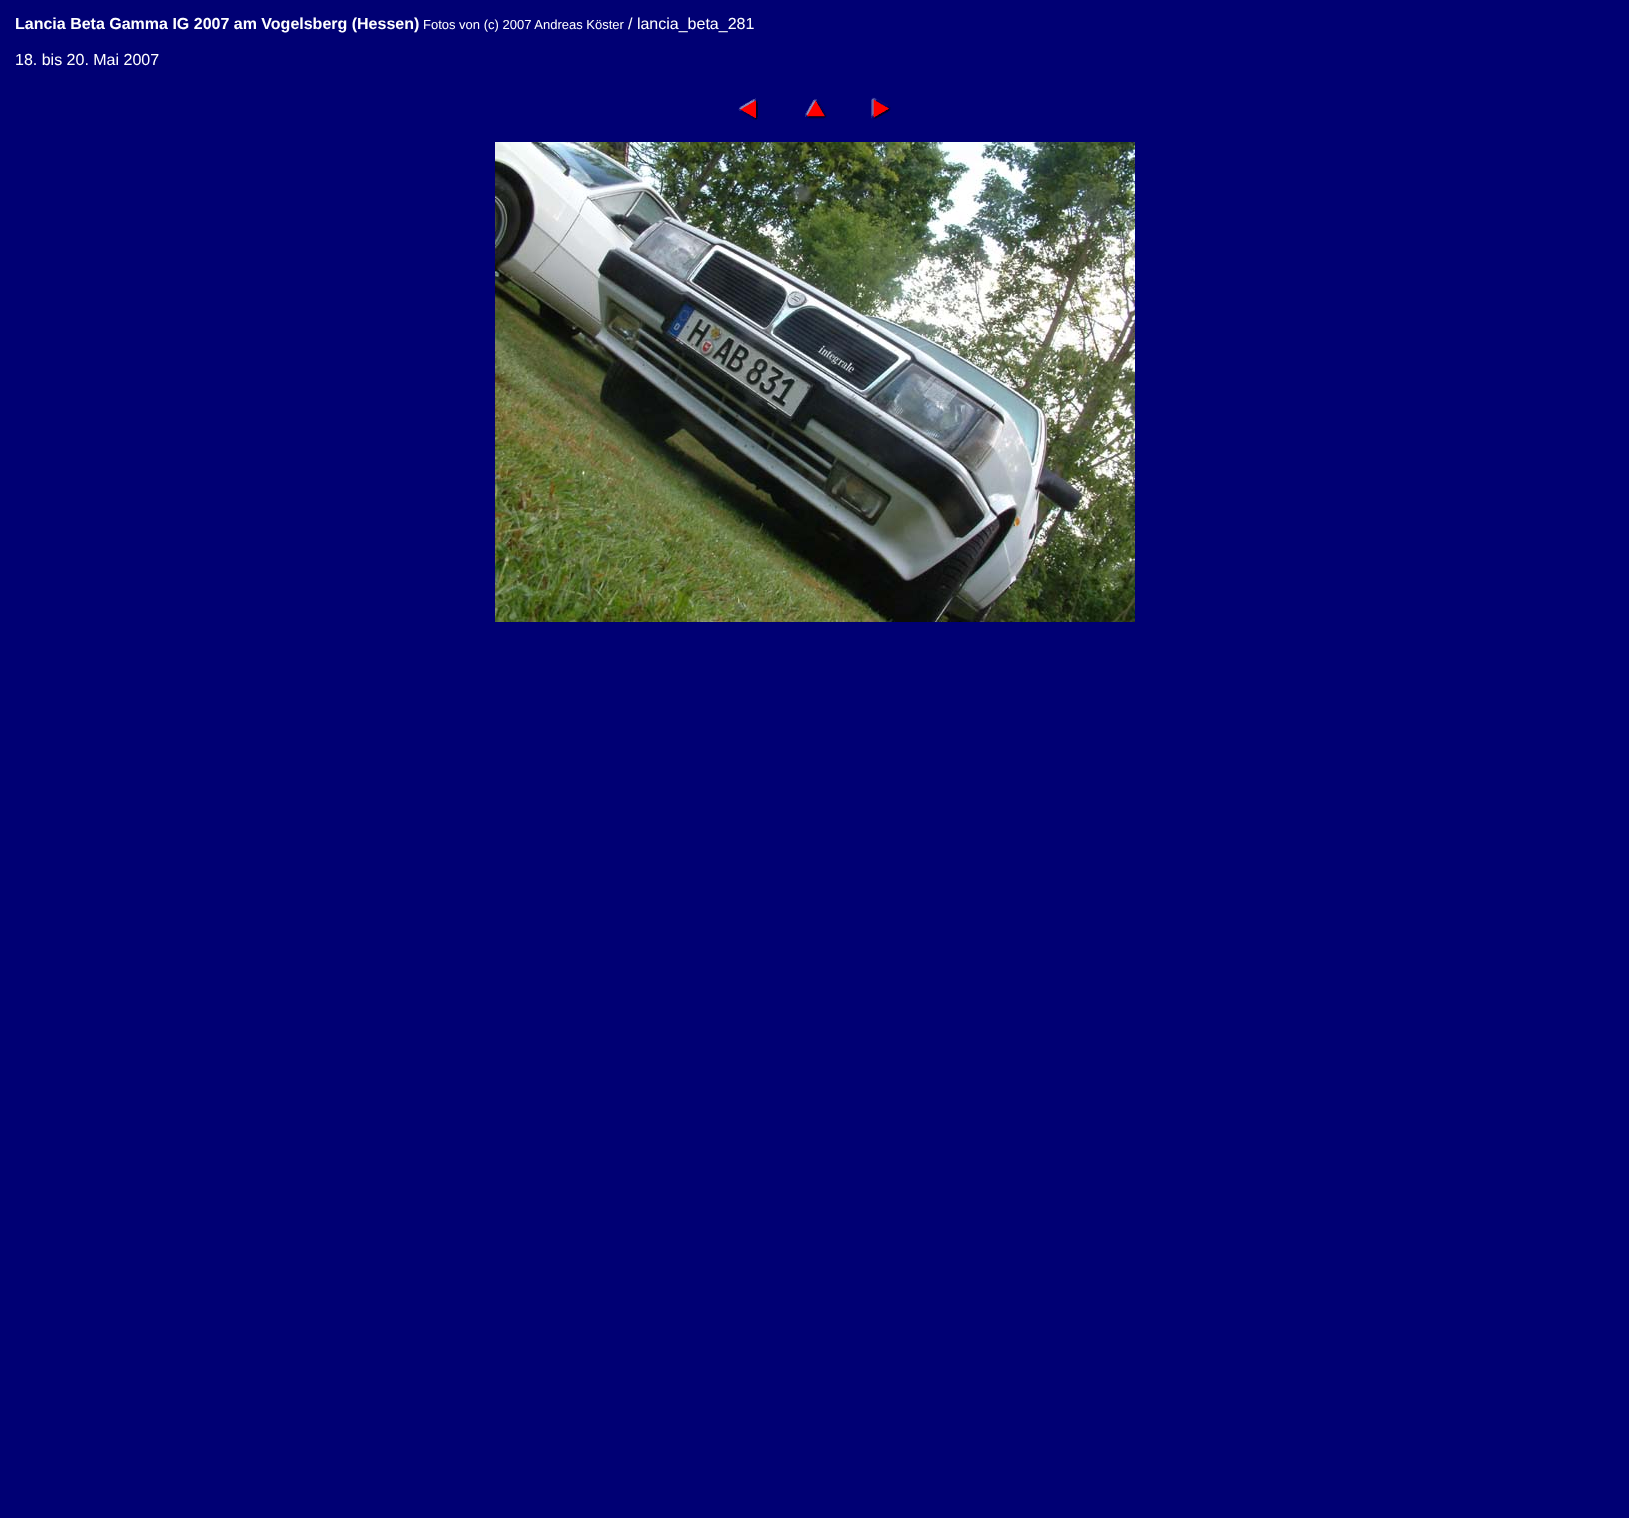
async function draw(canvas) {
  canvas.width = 1629;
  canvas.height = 1518;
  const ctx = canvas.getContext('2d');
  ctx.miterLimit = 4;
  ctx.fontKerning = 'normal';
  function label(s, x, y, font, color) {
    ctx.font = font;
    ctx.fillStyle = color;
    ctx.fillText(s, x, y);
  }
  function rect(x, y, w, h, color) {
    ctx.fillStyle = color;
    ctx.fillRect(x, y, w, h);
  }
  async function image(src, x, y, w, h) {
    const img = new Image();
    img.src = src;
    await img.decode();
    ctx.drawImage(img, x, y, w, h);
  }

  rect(0, 0, 1629, 1518, '#000074');
  label('Lancia Beta Gamma IG 2007 am Vogelsberg (Hessen)', 15, 29, 'bold 16px Liberation Sans', '#fff');
  label('Fotos von (c) 2007 Andreas Köster', 423, 29, '13px Liberation Sans', '#fff');
  label('/ lancia_beta_281', 628, 29, '16px Liberation Sans', '#fff');
  label('18. bis 20. Mai 2007', 15, 65, '16px Liberation Sans', '#fff');
  await image('assets/img1.png', 738, 98, 20, 22);
  await image('assets/img2.png', 805, 99, 22, 20);
  await image('assets/img3.png', 871, 97, 20, 22);
  await image('assets/img4.png', 495, 142, 640, 480);
}

draw(document.querySelector('canvas'));
